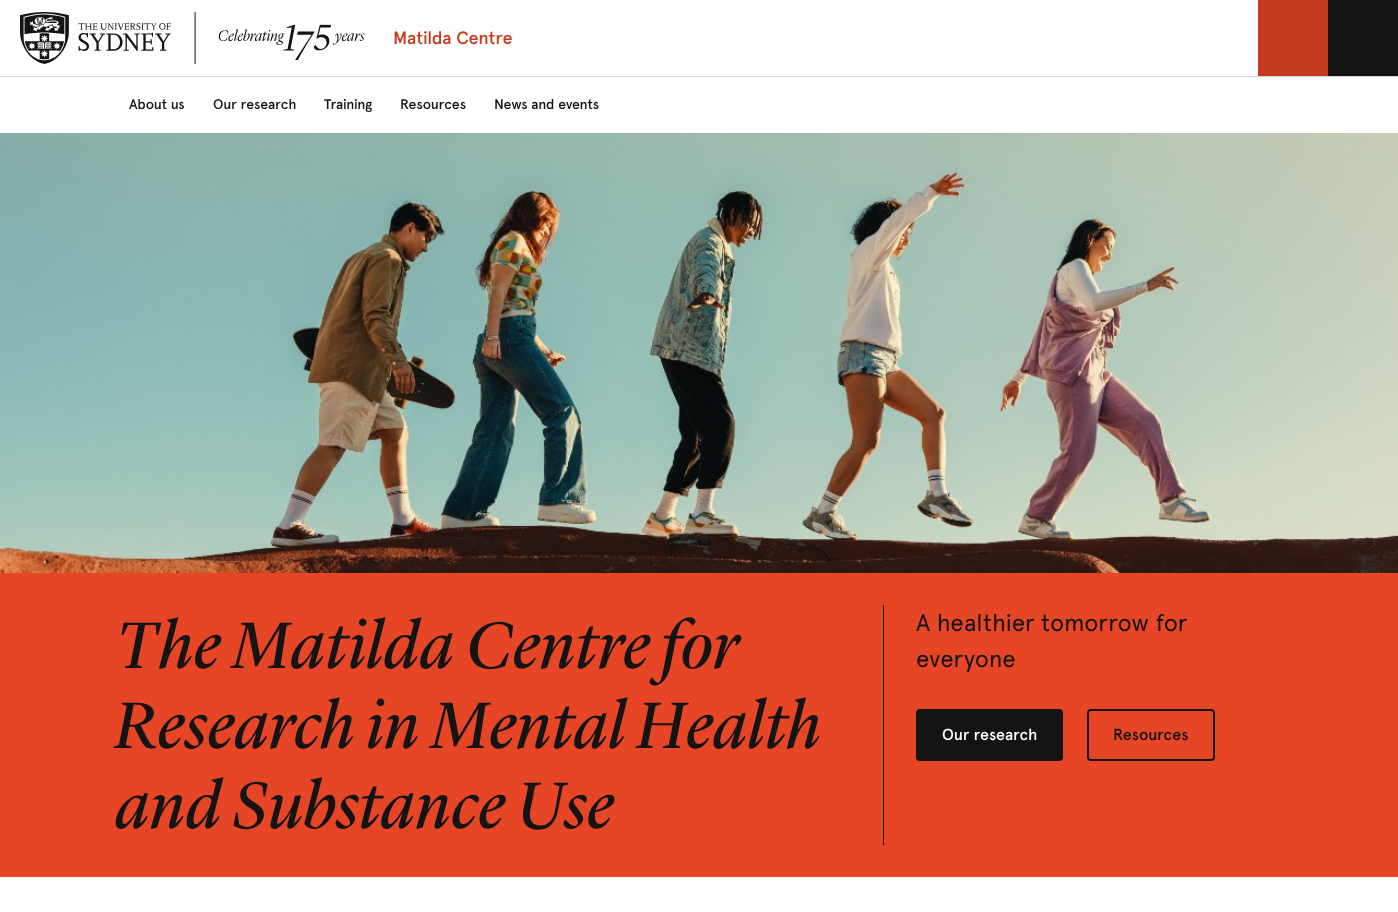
async function draw(canvas) {
  canvas.width = 1398;
  canvas.height = 912;
  const ctx = canvas.getContext('2d');
  ctx.miterLimit = 4;
  ctx.fontKerning = 'normal';
  function label(s, x, y, font, color) {
    ctx.font = font;
    ctx.fillStyle = color;
    ctx.fillText(s, x, y);
  }
  function rect(x, y, w, h, color) {
    ctx.fillStyle = color;
    ctx.fillRect(x, y, w, h);
  }
  async function image(src, x, y, w, h) {
    const img = new Image();
    img.src = src;
    await img.decode();
    ctx.drawImage(img, x, y, w, h);
  }

  rect(0, 0, 1398, 912, '#fff');
  await image('assets/img1.png', 20, 12, 345, 52);
  label('Matilda Centre', 393, 44, '500 18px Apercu', '#c63a1e');
  rect(1258, 0, 70, 76, '#c63a1e');
  rect(1328, 0, 70, 76, '#141414');
  rect(0, 76, 1398, 1, '#d2d2d2');
  label('About us', 129, 109, '500 14px Apercu', '#141414');
  label('Our research', 213, 109, '500 14px Apercu', '#141414');
  label('Training', 324, 109, '500 14px Apercu', '#141414');
  label('Resources', 400, 109, '500 14px Apercu', '#141414');
  label('News and events', 494, 109, '500 14px Apercu', '#141414');
  await image('assets/img2.png', 0, 133, 1398, 440);
  rect(0, 573, 1398, 304, '#e64626');
  ctx.letterSpacing = '0.7px';
  label('The Matilda Centre for', 115, 668, 'italic 68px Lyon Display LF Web', '#141414');
  label('Research in Mental Health', 115, 748, 'italic 68px Lyon Display LF Web', '#141414');
  label('and Substance Use', 115, 828, 'italic 68px Lyon Display LF Web', '#141414');
  rect(883, 605, 1, 240, '#141414');
  ctx.letterSpacing = '0px';
  label('A healthier tomorrow for', 916, 631, '24px Apercu', '#141414');
  label('everyone', 916, 667, '24px Apercu', '#141414');
  ctx.beginPath();
  ctx.roundRect(917, 710, 145, 50, 3);
  ctx.fill();
  ctx.strokeStyle = '#141414';
  ctx.lineWidth = 2;
  ctx.stroke();
  label('Our research', 942, 740, '500 16px Apercu', '#fff');
  ctx.beginPath();
  ctx.roundRect(1088, 710, 126, 50, 3);
  ctx.stroke();
  label('Resources', 1113, 740, '500 16px Apercu', '#141414');
}

draw(document.querySelector('canvas'));
